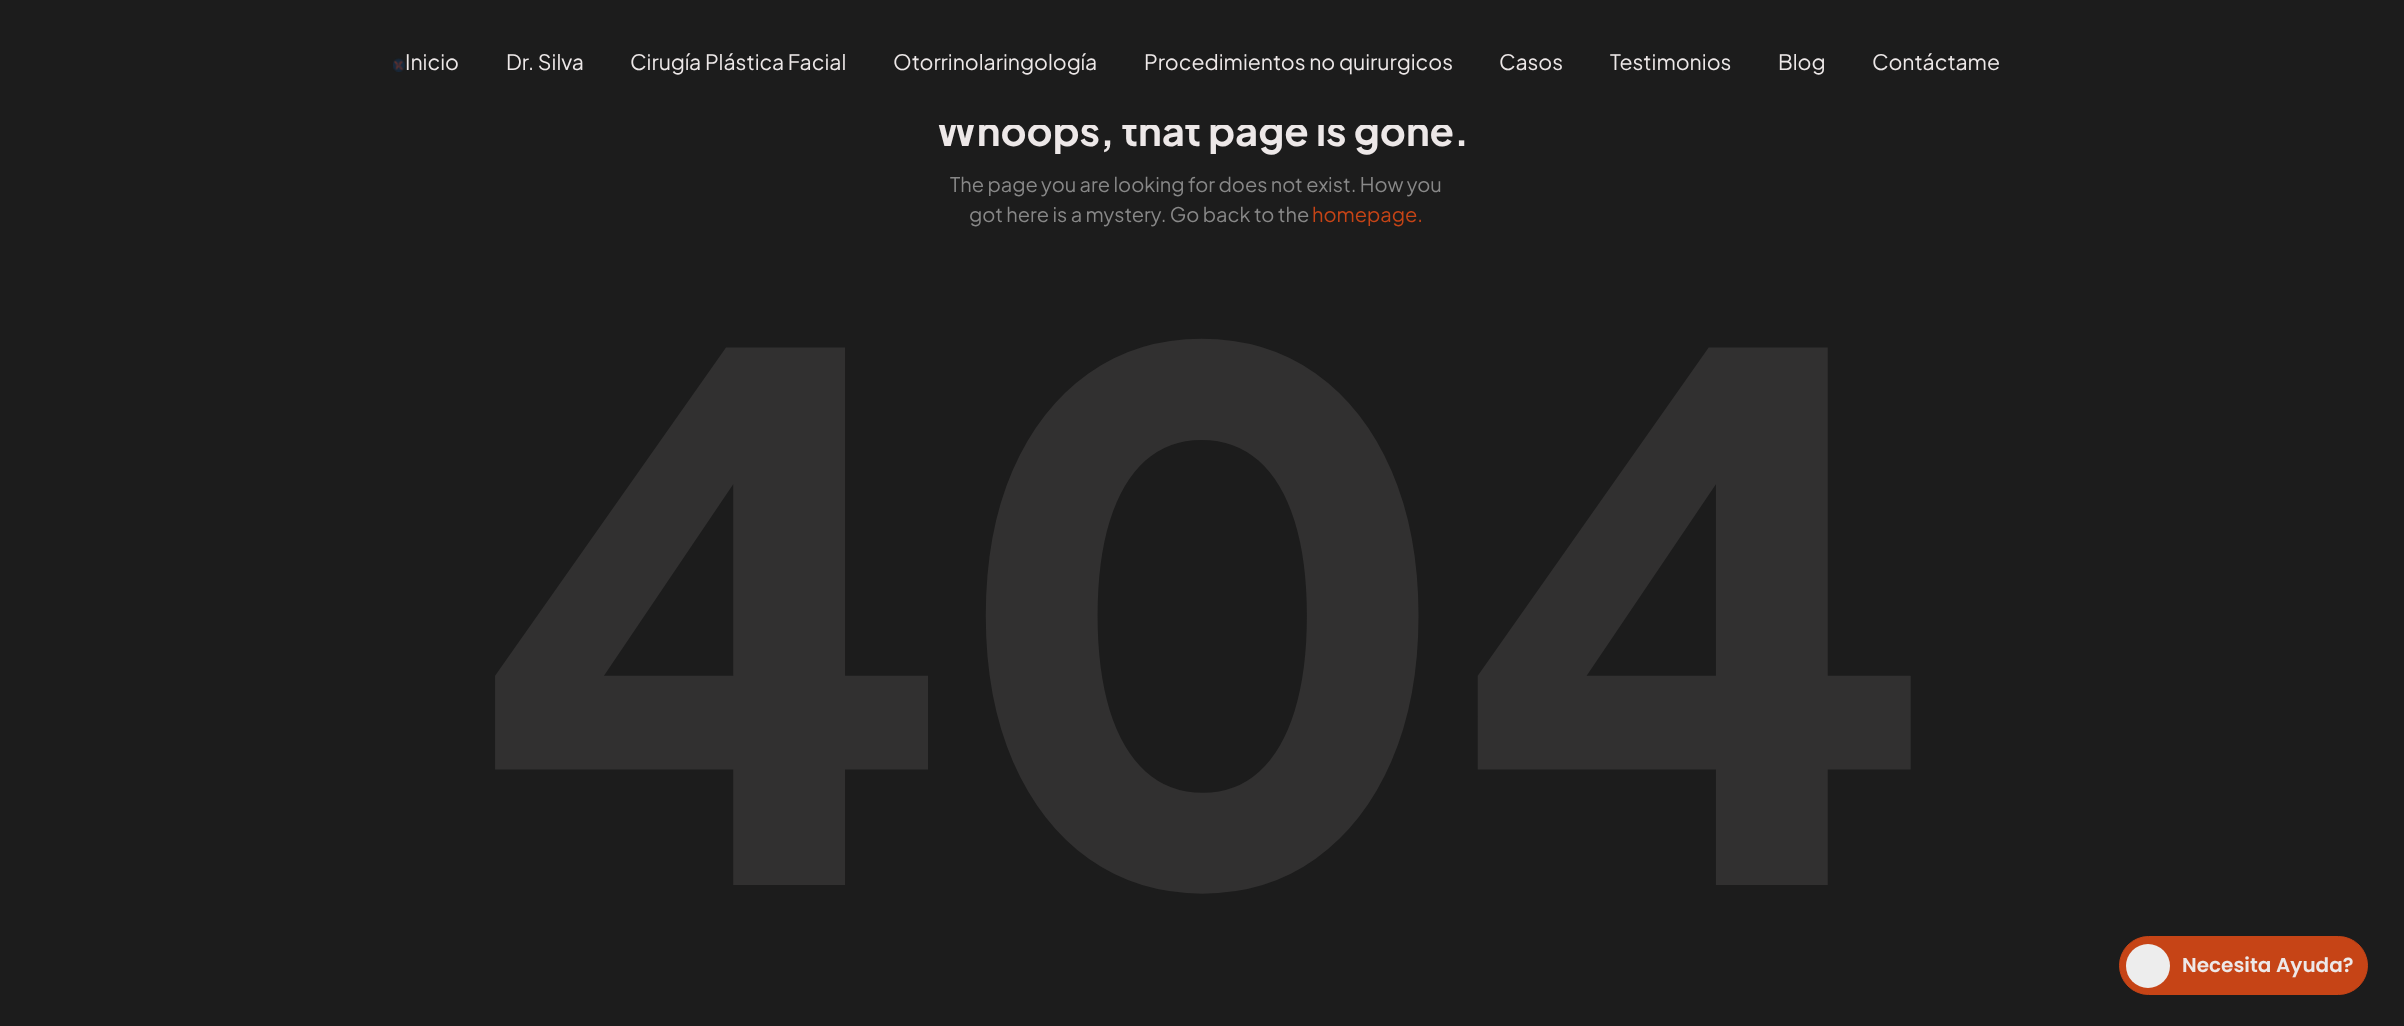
async function draw(canvas) {
  canvas.width = 2404;
  canvas.height = 1026;
  const ctx = canvas.getContext('2d');
  ctx.miterLimit = 4;
  ctx.fontKerning = 'normal';
  function label(s, x, y, font, color) {
    ctx.font = font;
    ctx.fillStyle = color;
    ctx.fillText(s, x, y);
  }
  function rect(x, y, w, h, color) {
    ctx.fillStyle = color;
    ctx.fillRect(x, y, w, h);
  }
  async function image(src, x, y, w, h) {
    const img = new Image();
    img.src = src;
    await img.decode();
    ctx.drawImage(img, x, y, w, h);
  }

  rect(0, 0, 2404, 1026, '#1c1c1c');
  label('Whoops, that page is gone.', 936, 146, 'bold 40px Plus Jakarta Sans', '#ede8e8');
  rect(936, 115, 511, 10, '#1c1c1c');
  await image('assets/img1.png', 393, 58, 12, 14);
  label('Inicio', 405, 70, '21.25px Plus Jakarta Sans', '#ede8e8');
  label('Dr. Silva', 506, 70, '21.25px Plus Jakarta Sans', '#ede8e8');
  label('Cirugía Plástica Facial', 630, 70, '21.25px Plus Jakarta Sans', '#ede8e8');
  label('Otorrinolaringología', 893, 70, '21.25px Plus Jakarta Sans', '#ede8e8');
  label('Procedimientos no quirurgicos', 1144, 70, '21.25px Plus Jakarta Sans', '#ede8e8');
  label('Casos', 1499, 70, '21.25px Plus Jakarta Sans', '#ede8e8');
  label('Testimonios', 1610, 70, '21.25px Plus Jakarta Sans', '#ede8e8');
  label('Blog', 1778, 70, '21.25px Plus Jakarta Sans', '#ede8e8');
  label('Contáctame', 1872, 70, '21.25px Plus Jakarta Sans', '#ede8e8');
  label('The page you are looking for does not exist. How you', 950, 192, '20px Plus Jakarta Sans', '#888');
  label('got here is a mystery. Go back to the', 969, 222, '20px Plus Jakarta Sans', '#888');
  label('homepage.', 1312, 222, '20px Plus Jakarta Sans', '#c64416');
  label('404', 472, 885, '800 721.5px Plus Jakarta Sans', '#313030');
  ctx.fillStyle = '#c64416';
  ctx.beginPath();
  ctx.roundRect(2119.5, 936.5, 248, 58, 29);
  ctx.fill();
  ctx.strokeStyle = '#c64416';
  ctx.stroke();
  ctx.fillStyle = '#ededed';
  ctx.beginPath();
  ctx.arc(2148, 966, 22, 0, 2 * Math.PI);
  ctx.fill();
  label('Necesita Ayuda?', 2182, 972, '600 20px Poppins', '#ede8e8');
}

draw(document.querySelector('canvas'));
